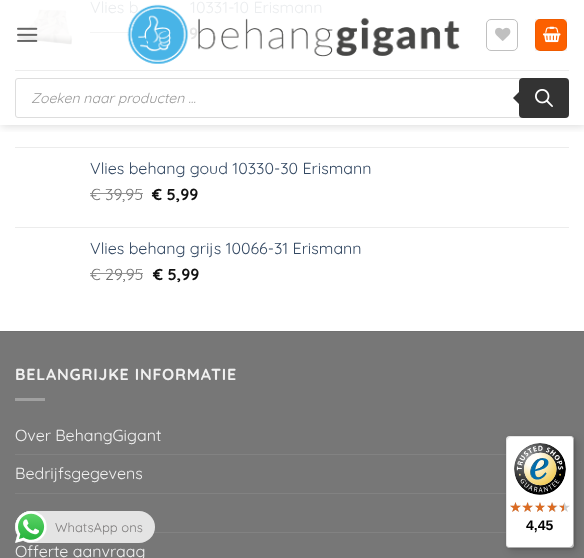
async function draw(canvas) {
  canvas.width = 584;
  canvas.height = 558;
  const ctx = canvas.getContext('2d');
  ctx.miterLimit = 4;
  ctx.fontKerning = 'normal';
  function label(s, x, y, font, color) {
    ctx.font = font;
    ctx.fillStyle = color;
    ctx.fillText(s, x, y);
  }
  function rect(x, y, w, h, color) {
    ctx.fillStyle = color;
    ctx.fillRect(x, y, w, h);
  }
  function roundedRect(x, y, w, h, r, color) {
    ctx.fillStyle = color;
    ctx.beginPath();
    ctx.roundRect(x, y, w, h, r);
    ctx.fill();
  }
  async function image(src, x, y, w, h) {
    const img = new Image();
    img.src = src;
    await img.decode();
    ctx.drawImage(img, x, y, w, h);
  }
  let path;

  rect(0, 0, 584, 558, '#fff');
  await image('assets/img1.png', 15, 8, 58, 37);
  label('Vlies b', 90, 13, '16px Quicksand', '#ebedef');
  label('10331-10 Erismann', 190, 13, '16px Quicksand', '#ebedef');
  rect(90, 32, 39, 1, '#f4f4f4');
  label('9', 189, 39, 'bold 16px Quicksand', '#e7e7e7');
  rect(15, 147, 554, 1, '#ececec');
  label('Vlies behang goud 10330-30 Erismann', 90, 174, '16px Quicksand', '#334862');
  label('€ 39,95', 90, 200, '16px Quicksand', '#707070');
  rect(90, 193, 53, 1, '#929292');
  label('€ 5,99', 152, 200, 'bold 16px Quicksand', '#111');
  rect(15, 227, 554, 1, '#ececec');
  label('Vlies behang grijs 10066-31 Erismann', 90, 254, '16px Quicksand', '#334862');
  label('€ 29,95', 90, 280, '16px Quicksand', '#707070');
  rect(90, 273, 53, 1, '#929292');
  label('€ 5,99', 153, 280, 'bold 16px Quicksand', '#111');
  rect(0, 332, 584, 226, '#777');
  rect(0, 331, 584, 1, '#717171');
  ctx.letterSpacing = '0.8px';
  label('BELANGRIJKE INFORMATIE', 15, 380, 'bold 16px Quicksand', '#f1f1f1');
  rect(15, 398, 30, 3, '#a0a0a0');
  ctx.letterSpacing = '0px';
  label('Over BehangGigant', 15, 441, '16px Quicksand', '#f1f1f1');
  rect(15, 454, 491, 1, '#828282');
  label('Bedrijfsgegevens', 15, 479, '16px Quicksand', '#f1f1f1');
  rect(15, 493, 491, 1, '#828282');
  rect(15, 532, 491, 1, '#828282');
  label('Offerte aanvraag', 15, 557, '16px Quicksand', '#f1f1f1');
  ctx.save();
  ctx.beginPath();
  ctx.rect(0, 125, 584, 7);
  ctx.clip();
  ctx.fillStyle = '#00000026';
  ctx.filter = 'blur(5px)';
  ctx.beginPath();
  ctx.rect(1, 1, 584, 125);
  ctx.fill();
  ctx.filter = 'none';
  ctx.restore();
  await image('assets/img2.png', 17, 27, 21, 15);
  await image('assets/img3.png', 127, 4, 333, 60);
  ctx.beginPath();
  ctx.roundRect(486.5, 19.5, 31, 31, 4.5);
  ctx.strokeStyle = '#c0c0c0';
  ctx.stroke();
  await image('assets/img4.png', 495, 27, 16, 14);
  roundedRect(535, 19, 32, 32, 5, '#fc6000');
  ctx.strokeStyle = '#0000000d';
  ctx.strokeRect(535.5, 19.5, 31, 31);
  await image('assets/img5.png', 543, 26, 18, 17);
  rect(15, 70, 554, 1, '#ededed');
  ctx.beginPath();
  ctx.roundRect(15.5, 78.5, 553, 39, 2.5);
  ctx.strokeStyle = '#ddd';
  ctx.stroke();
  label('Zoeken naar producten ...', 31, 103, 'italic 14px Quicksand', '#999');
  roundedRect(519, 78, 50, 40, 4, '#333');
  path = new Path2D('M521 90V106L513 98Z');
  ctx.fill(path);
  await image('assets/img6.png', 535, 89, 18, 18);
  ctx.fillStyle = '#00000026';
  ctx.filter = 'blur(4px)';
  ctx.beginPath();
  ctx.roundRect(509, 439, 68, 112, 4);
  ctx.fill();
  ctx.filter = 'none';
  ctx.filter = 'blur(1px)';
  ctx.beginPath();
  ctx.roundRect(507, 437, 68, 112, 4);
  ctx.fill();
  ctx.filter = 'none';
  roundedRect(506, 436, 68, 112, 4, '#fff');
  ctx.fillStyle = '#0000001a';
  path = new Path2D('M511 437H571L573 438C573 437 571 436 570 436H510C508 436 506 438 506 440V544C506 545 507 547 508 547L507 545V441C507 439 509 437 511 437Z');
  ctx.fill(path);
  ctx.fillStyle = '#00000033';
  path = new Path2D('M507 546C507 547 509 548 510 548H570C572 548 574 546 574 544V440C574 439 573 437 572 437L573 439V543C573 545 571 547 569 547H509Z');
  ctx.fill(path);
  ctx.fillStyle = '#32323233';
  path = new Path2D('M507 547C508 547 509 548 510 548H570C572 548 574 546 574 544V440C574 439 573 438 573 437V439V543C573 546 572 547 569 547H509Z');
  ctx.fill(path);
  await image('assets/img7.png', 514, 443, 52, 52);
  await image('assets/img8.png', 510, 502, 11, 10);
  await image('assets/img9.png', 523, 502, 10, 10);
  await image('assets/img10.png', 535, 502, 10, 10);
  await image('assets/img11.png', 547, 502, 11, 10);
  await image('assets/img11.png', 559, 502, 11, 10);
  await image('assets/img12.png', 510, 502, 11, 10);
  await image('assets/img13.png', 522, 502, 11, 10);
  await image('assets/img14.png', 535, 502, 10, 10);
  await image('assets/img15.png', 547, 502, 10, 10);
  await image('assets/img16.png', 559, 503, 5, 9);
  label('4,45', 526, 530, 'bold 14px Liberation Sans', '#000');
  roundedRect(15, 511, 140, 32, 16, '#e4e4e4');
  await image('assets/img17.png', 15, 511, 32, 32);
  label('WhatsApp ons', 55, 532, '13px Quicksand', '#7f7d7d');
}

draw(document.querySelector('canvas'));
